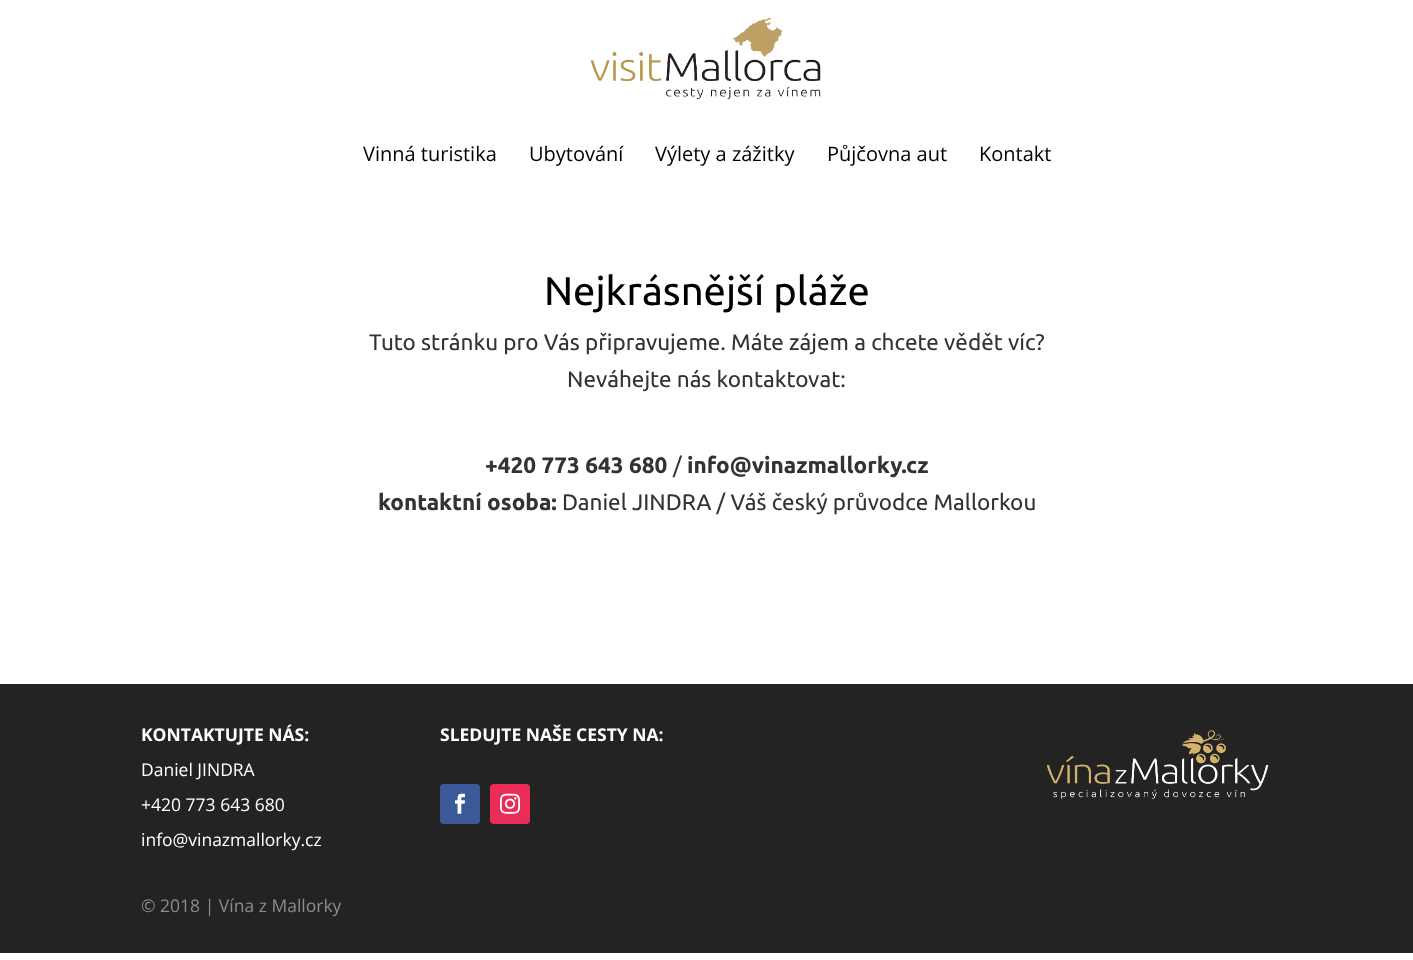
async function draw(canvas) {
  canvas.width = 1413;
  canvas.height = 960;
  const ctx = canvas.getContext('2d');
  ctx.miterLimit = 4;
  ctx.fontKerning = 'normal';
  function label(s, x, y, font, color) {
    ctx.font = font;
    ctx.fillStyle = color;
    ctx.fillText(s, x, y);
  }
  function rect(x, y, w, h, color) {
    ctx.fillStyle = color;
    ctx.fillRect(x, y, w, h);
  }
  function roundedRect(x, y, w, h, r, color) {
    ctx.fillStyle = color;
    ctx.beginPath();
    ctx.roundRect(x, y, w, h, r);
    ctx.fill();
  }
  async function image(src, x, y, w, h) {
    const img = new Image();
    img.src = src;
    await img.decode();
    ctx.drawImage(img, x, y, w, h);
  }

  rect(0, 0, 1413, 960, '#fff');
  await image('assets/img1.png', 590, 17, 231, 82);
  label('Vinná turistika', 363, 161, '20px Open Sans', '#000');
  label('Ubytování', 529, 161, '20px Open Sans', '#000');
  label('Výlety a zážitky', 655, 161, '20px Open Sans', '#000');
  label('Půjčovna aut', 827, 161, '20px Open Sans', '#000');
  label('Kontakt', 979, 161, '20px Open Sans', '#000');
  label('Nejkrásnější pláže', 544, 305, '40px Ubuntu', '#000');
  label('Tuto stránku pro Vás připravujeme. Máte zájem a chcete vědět víc?', 369, 350, '22.5px Ubuntu', '#333');
  label('Neváhejte nás kontaktovat:', 567, 387, '22.5px Ubuntu', '#333');
  label('+420 773 643 680', 485, 473, 'bold 22.5px Ubuntu', '#333');
  label('/', 673, 473, '22.5px Ubuntu', '#333');
  label('info@vinazmallorky.cz', 687, 473, 'bold 22.5px Ubuntu', '#333');
  label('kontaktní osoba:', 378, 510, 'bold 22.5px Ubuntu', '#333');
  label('Daniel JINDRA / Váš český průvodce Mallorkou', 562, 510, '22.5px Ubuntu', '#333');
  rect(0, 684, 1413, 269, '#232323');
  label('KONTAKTUJTE NÁS:', 141, 741, 'bold 17.5px Open Sans', '#fff');
  label('Daniel JINDRA', 141, 776, '17.5px Open Sans', '#fff');
  label('+420 773 643 680', 141, 811, '17.5px Open Sans', '#fff');
  label('info@vinazmallorky.cz', 141, 846, '17.5px Open Sans', '#fff');
  label('SLEDUJTE NAŠE CESTY NA:', 440, 741, 'bold 17.5px Open Sans', '#fff');
  roundedRect(440, 784, 40, 40, 4, '#3b5998');
  await image('assets/img2.png', 455, 793, 10, 21);
  roundedRect(490, 784, 40, 40, 4, '#ea2c59');
  await image('assets/img3.png', 500, 793, 20, 21);
  await image('assets/img4.png', 1046, 730, 223, 69);
  label('© 2018 | Vína z Mallorky', 141, 912, '17.5px Open Sans', '#8c8c8c');
}

draw(document.querySelector('canvas'));
